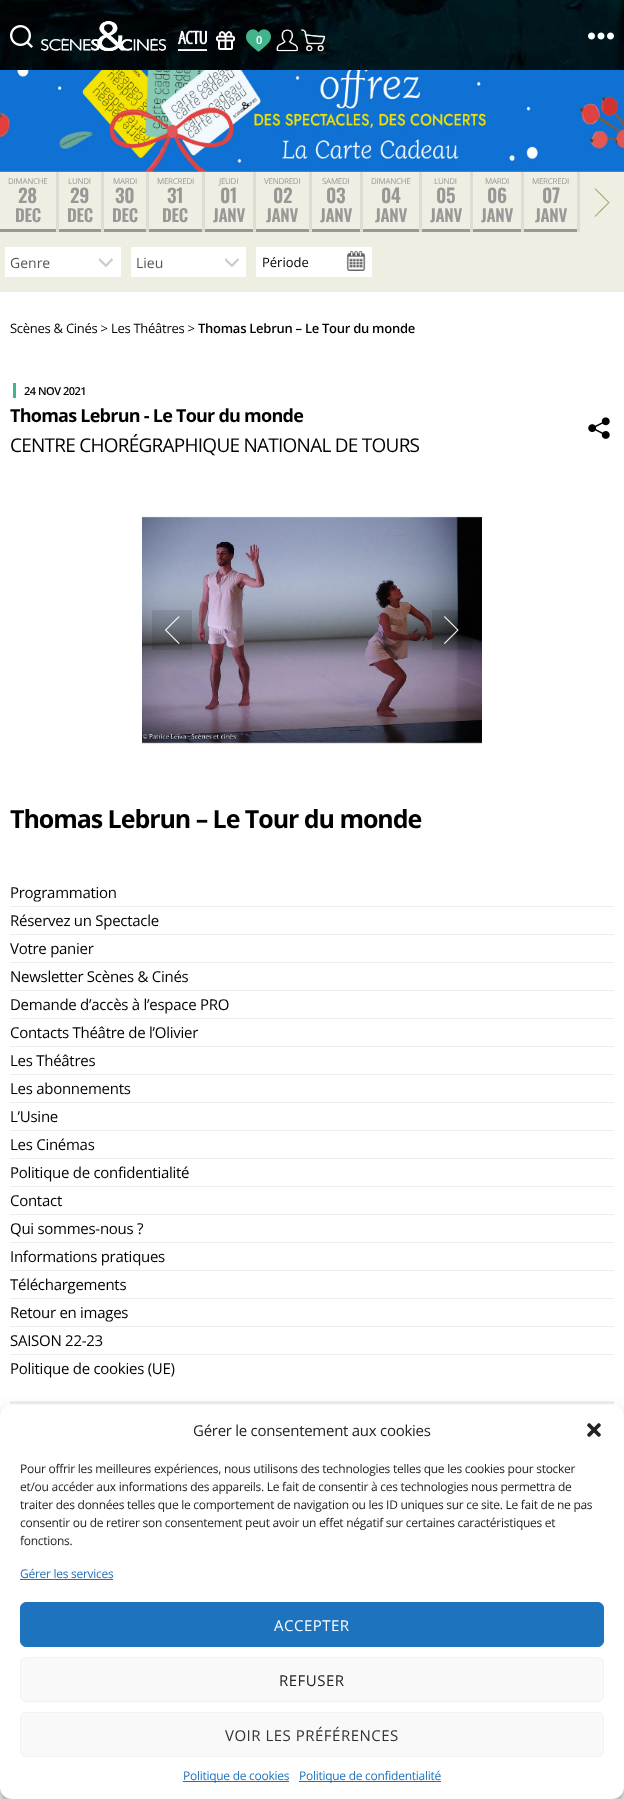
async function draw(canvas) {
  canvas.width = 624;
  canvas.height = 1799;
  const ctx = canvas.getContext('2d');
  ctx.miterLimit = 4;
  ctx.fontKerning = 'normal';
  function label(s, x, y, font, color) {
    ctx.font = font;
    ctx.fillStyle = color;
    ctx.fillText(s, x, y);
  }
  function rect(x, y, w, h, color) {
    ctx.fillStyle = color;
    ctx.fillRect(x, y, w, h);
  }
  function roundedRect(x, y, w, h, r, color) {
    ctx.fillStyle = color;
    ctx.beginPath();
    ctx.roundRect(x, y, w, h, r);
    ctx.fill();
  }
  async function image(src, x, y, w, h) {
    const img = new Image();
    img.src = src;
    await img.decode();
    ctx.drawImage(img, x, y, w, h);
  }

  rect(0, 0, 624, 1799, '#fff');
  await image('assets/img1.png', 0, 0, 624, 70);
  await image('assets/img2.png', 10, 25, 23, 23);
  await image('assets/img3.png', 41, 21, 125, 30);
  await image('assets/img4.png', 588, 32, 26, 8);
  await image('assets/img5.png', 177, 30, 31, 21);
  await image('assets/img6.png', 216, 31, 19, 19);
  await image('assets/img7.png', 246, 29, 25, 23);
  ctx.letterSpacing = '-1px';
  label('0', 256, 44, '600 11px Open Sans', '#fff');
  await image('assets/img8.png', 276, 29, 22, 23);
  await image('assets/img9.png', 301, 29, 25, 23);
  await image('assets/img10.png', 0, 70, 624, 102);
  rect(0, 172, 624, 120, '#efeee3');
  rect(56, 172, 3, 60, '#deddd3');
  rect(0, 229, 56, 3, '#9b9797');
  ctx.letterSpacing = '-0.27px';
  label('DIMANCHE', 8, 184, '8px Open Sans', '#9b9797');
  label('28', 18, 203, '600 19px Oswald', '#9b9797');
  label('DEC', 15, 222, '600 17px Oswald', '#9b9797');
  rect(101, 172, 3, 60, '#deddd3');
  rect(59, 229, 42, 3, '#9b9797');
  label('LUNDI', 68, 184, '8px Open Sans', '#9b9797');
  label('29', 70, 203, '600 19px Oswald', '#9b9797');
  label('DEC', 67, 222, '600 17px Oswald', '#9b9797');
  rect(146, 172, 3, 60, '#deddd3');
  rect(104, 229, 42, 3, '#9b9797');
  label('MARDI', 113, 184, '8px Open Sans', '#9b9797');
  label('30', 115, 203, '600 19px Oswald', '#9b9797');
  label('DEC', 112, 222, '600 17px Oswald', '#9b9797');
  rect(202, 172, 3, 60, '#deddd3');
  rect(149, 229, 53, 3, '#9b9797');
  label('MERCREDI', 157, 184, '8px Open Sans', '#9b9797');
  label('31', 167, 203, '600 19px Oswald', '#9b9797');
  label('DEC', 162, 222, '600 17px Oswald', '#9b9797');
  rect(253, 172, 3, 60, '#deddd3');
  rect(205, 229, 48, 3, '#9b9797');
  label('JEUDI', 219, 184, '8px Open Sans', '#9b9797');
  label('01', 220, 203, '600 19px Oswald', '#9b9797');
  label('JANV', 213, 222, '600 17px Oswald', '#9b9797');
  rect(309, 172, 3, 60, '#deddd3');
  rect(256, 229, 53, 3, '#9b9797');
  label('VENDREDI', 264, 184, '8px Open Sans', '#9b9797');
  label('02', 273, 203, '600 19px Oswald', '#9b9797');
  label('JANV', 266, 222, '600 17px Oswald', '#9b9797');
  rect(360, 172, 3, 60, '#deddd3');
  rect(312, 229, 48, 3, '#9b9797');
  label('SAMEDI', 322, 184, '8px Open Sans', '#9b9797');
  label('03', 326, 203, '600 19px Oswald', '#9b9797');
  label('JANV', 320, 222, '600 17px Oswald', '#9b9797');
  rect(419, 172, 3, 60, '#deddd3');
  rect(363, 229, 56, 3, '#9b9797');
  label('DIMANCHE', 371, 184, '8px Open Sans', '#9b9797');
  label('04', 381, 203, '600 19px Oswald', '#9b9797');
  label('JANV', 375, 222, '600 17px Oswald', '#9b9797');
  rect(470, 172, 3, 60, '#deddd3');
  rect(422, 229, 48, 3, '#9b9797');
  label('LUNDI', 434, 184, '8px Open Sans', '#9b9797');
  label('05', 436, 203, '600 19px Oswald', '#9b9797');
  label('JANV', 430, 222, '600 17px Oswald', '#9b9797');
  rect(521, 172, 3, 60, '#deddd3');
  rect(473, 229, 48, 3, '#9b9797');
  label('MARDI', 485, 184, '8px Open Sans', '#9b9797');
  label('06', 487, 203, '600 19px Oswald', '#9b9797');
  label('JANV', 481, 222, '600 17px Oswald', '#9b9797');
  rect(577, 172, 3, 60, '#deddd3');
  rect(524, 229, 53, 3, '#9b9797');
  label('MERCREDI', 532, 184, '8px Open Sans', '#9b9797');
  label('07', 542, 203, '600 19px Oswald', '#9b9797');
  label('JANV', 535, 222, '600 17px Oswald', '#9b9797');
  await image('assets/img11.png', 594, 188, 16, 29);
  rect(5, 247, 116, 30, '#fff');
  await image('assets/img12.png', 99, 258, 14, 9);
  ctx.letterSpacing = '0px';
  label('Genre', 10, 268, '14px Open Sans', '#565656');
  rect(131, 247, 115, 30, '#fff');
  await image('assets/img12.png', 225, 258, 14, 9);
  label('Lieu', 136, 268, '14px Open Sans', '#565656');
  rect(256, 247, 116, 30, '#fff');
  await image('assets/img13.png', 346, 251, 20, 20);
  label('Période', 262, 267, '13px Open Sans', '#000');
  ctx.letterSpacing = '-0.27px';
  label('Scènes & Cinés > Les Théâtres >', 10, 333, '13px Open Sans', '#000');
  label('Thomas Lebrun – Le Tour du monde', 198, 333, '600 13px Open Sans', '#000');
  rect(13, 383, 3, 15, '#42b58c');
  ctx.letterSpacing = '-0.5px';
  label('24 NOV 2021', 24, 395, '600 11px Open Sans', '#000');
  ctx.letterSpacing = '-0.75px';
  label('Thomas Lebrun - Le Tour du monde', 10, 422, 'bold 18px Open Sans', '#000');
  label('CENTRE CHORÉGRAPHIQUE NATIONAL DE TOURS', 10, 452, '19px Open Sans', '#000');
  await image('assets/img14.png', 588, 417, 22, 22);
  await image('assets/img15.png', 142, 516, 340, 228);
  await image('assets/img16.png', 152, 610, 40, 40);
  await image('assets/img17.png', 432, 610, 40, 40);
  ctx.letterSpacing = '-1.05px';
  label('Thomas Lebrun – Le Tour du monde', 10, 828, 'bold 25px Open Sans', '#000');
  rect(10, 1401, 604, 3, '#eee');
  rect(10, 906, 604, 1, '#eee');
  ctx.letterSpacing = '-0.27px';
  label('Programmation', 10, 898, '15px Open Sans', '#000');
  rect(10, 934, 604, 1, '#eee');
  label('Réservez un Spectacle', 10, 926, '15px Open Sans', '#000');
  rect(10, 962, 604, 1, '#eee');
  label('Votre panier', 10, 954, '15px Open Sans', '#000');
  rect(10, 990, 604, 1, '#eee');
  label('Newsletter Scènes & Cinés', 10, 982, '15px Open Sans', '#000');
  rect(10, 1018, 604, 1, '#eee');
  label('Demande d’accès à l’espace PRO', 10, 1010, '15px Open Sans', '#000');
  rect(10, 1046, 604, 1, '#eee');
  label('Contacts Théâtre de l’Olivier', 10, 1038, '15px Open Sans', '#000');
  rect(10, 1074, 604, 1, '#eee');
  label('Les Théâtres', 10, 1066, '15px Open Sans', '#000');
  rect(10, 1102, 604, 1, '#eee');
  label('Les abonnements', 10, 1094, '15px Open Sans', '#000');
  rect(10, 1130, 604, 1, '#eee');
  label('L’Usine', 10, 1122, '15px Open Sans', '#000');
  rect(10, 1158, 604, 1, '#eee');
  label('Les Cinémas', 10, 1150, '15px Open Sans', '#000');
  rect(10, 1186, 604, 1, '#eee');
  label('Politique de confidentialité', 10, 1178, '15px Open Sans', '#000');
  rect(10, 1214, 604, 1, '#eee');
  label('Contact', 10, 1206, '15px Open Sans', '#000');
  rect(10, 1242, 604, 1, '#eee');
  label('Qui sommes-nous ?', 10, 1234, '15px Open Sans', '#000');
  rect(10, 1270, 604, 1, '#eee');
  label('Informations pratiques', 10, 1262, '15px Open Sans', '#000');
  rect(10, 1298, 604, 1, '#eee');
  label('Téléchargements', 10, 1290, '15px Open Sans', '#000');
  rect(10, 1326, 604, 1, '#eee');
  label('Retour en images', 10, 1318, '15px Open Sans', '#000');
  rect(10, 1354, 604, 1, '#eee');
  label('SAISON 22-23', 10, 1346, '15px Open Sans', '#000');
  label('Politique de cookies (UE)', 10, 1374, '15px Open Sans', '#000');
  ctx.fillStyle = '#0000003b';
  ctx.filter = 'blur(3px)';
  ctx.beginPath();
  ctx.roundRect(0, 1411, 624, 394, 12);
  ctx.fill();
  ctx.filter = 'none';
  ctx.fillStyle = '#00000030';
  ctx.filter = 'blur(10px)';
  ctx.beginPath();
  ctx.roundRect(0, 1415, 624, 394, 12);
  ctx.fill();
  ctx.filter = 'none';
  roundedRect(0, 1405, 624, 394, 12, '#fff');
  label('Gérer le consentement aux cookies', 193, 1436, '15px Open Sans', '#222');
  await image('assets/img18.png', 587, 1423, 14, 14);
  label('Pour offrir les meilleures expériences, nous utilisons des technologies telles que les cookies pour stocker', 20, 1473, '12px Open Sans', '#222');
  label('et/ou accéder aux informations des appareils. Le fait de consentir à ces technologies nous permettra de', 20, 1491, '12px Open Sans', '#222');
  label('traiter des données telles que le comportement de navigation ou les ID uniques sur ce site. Le fait de ne pas', 20, 1509, '12px Open Sans', '#222');
  label('consentir ou de retirer son consentement peut avoir un effet négatif sur certaines caractéristiques et', 20, 1527, '12px Open Sans', '#222');
  label('fonctions.', 20, 1545, '12px Open Sans', '#222');
  label('Gérer les services', 20, 1578, '12px Open Sans', '#1e73be');
  rect(20, 1579, 93, 1, '#1e73be');
  ctx.beginPath();
  ctx.roundRect(20.5, 1602.5, 583, 44, 5.5);
  ctx.fill();
  ctx.strokeStyle = '#1e73be';
  ctx.stroke();
  ctx.letterSpacing = '0.5px';
  label('ACCEPTER', 274, 1631, '15px Open Sans', '#fff');
  ctx.fillStyle = '#f9f9f9';
  ctx.beginPath();
  ctx.roundRect(20.5, 1657.5, 583, 44, 5.5);
  ctx.fill();
  ctx.strokeStyle = '#f2f2f2';
  ctx.stroke();
  label('REFUSER', 279, 1686, '15px Open Sans', '#222');
  ctx.fillStyle = '#f9f9f9';
  ctx.beginPath();
  ctx.roundRect(20.5, 1712.5, 583, 44, 5.5);
  ctx.fill();
  ctx.stroke();
  label('VOIR LES PRÉFÉRENCES', 225, 1741, '15px Open Sans', '#333');
  rect(183, 1781, 106, 1, '#1e73be');
  ctx.letterSpacing = '-0.27px';
  label('Politique de cookies', 183, 1780, '12px Open Sans', '#1e73be');
  rect(299, 1781, 142, 1, '#1e73be');
  label('Politique de confidentialité', 299, 1780, '12px Open Sans', '#1e73be');
}

draw(document.querySelector('canvas'));
